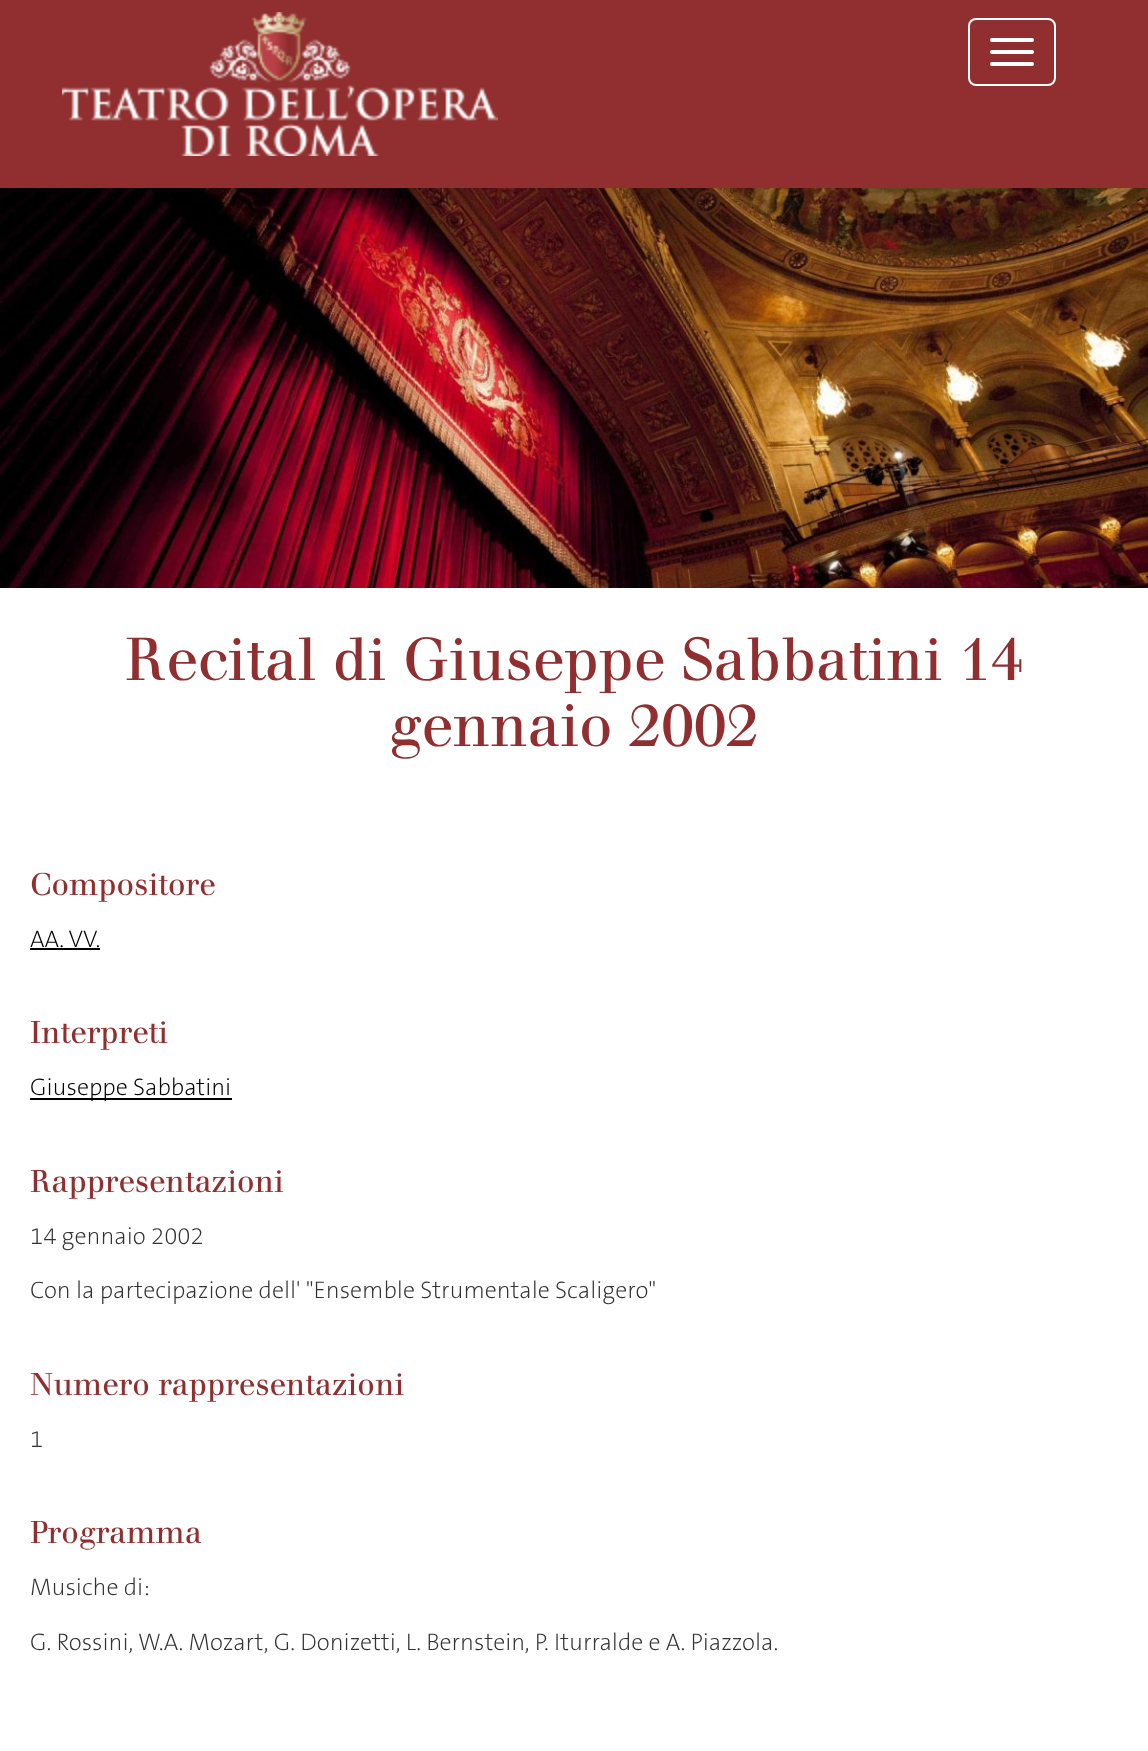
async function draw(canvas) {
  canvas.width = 1148;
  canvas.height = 1751;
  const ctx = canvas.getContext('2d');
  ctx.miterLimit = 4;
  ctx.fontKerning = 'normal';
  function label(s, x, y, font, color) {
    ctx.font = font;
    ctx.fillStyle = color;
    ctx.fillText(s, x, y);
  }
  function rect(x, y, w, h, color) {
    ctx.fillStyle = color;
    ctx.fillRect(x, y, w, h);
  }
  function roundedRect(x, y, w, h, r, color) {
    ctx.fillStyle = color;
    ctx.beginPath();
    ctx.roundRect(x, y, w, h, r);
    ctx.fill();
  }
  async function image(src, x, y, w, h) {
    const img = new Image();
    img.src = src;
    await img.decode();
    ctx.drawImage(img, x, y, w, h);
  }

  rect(0, 0, 1148, 1751, '#fff');
  rect(0, 0, 1148, 188, '#912f30');
  await image('assets/img1.png', 62, 12, 436, 144);
  ctx.beginPath();
  ctx.roundRect(969, 19, 86, 66, 7);
  ctx.strokeStyle = '#fff';
  ctx.lineWidth = 2;
  ctx.stroke();
  roundedRect(990, 38, 44, 4, 2, '#fff');
  roundedRect(990, 50, 44, 4, 2, '#fff');
  roundedRect(990, 62, 44, 4, 2, '#fff');
  await image('assets/img2.png', 0, 188, 1148, 400);
  label('Recital di Giuseppe Sabbatini 14', 125, 680, '60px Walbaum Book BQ', '#912f30');
  label('gennaio 2002', 389, 746, '60px Walbaum Book BQ', '#912f30');
  label('Compositore', 30, 895, '31.25px Walbaum Book BQ', '#912f30');
  label('AA. VV.', 30, 947, '200 24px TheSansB', '#000');
  rect(30, 948, 70, 2, '#000');
  label('Interpreti', 30, 1043, '31.25px Walbaum Book BQ', '#912f30');
  rect(30, 1098, 202, 2, '#000');
  label('Giuseppe Sabbatini', 30, 1095, '200 24px TheSansB', '#000');
  label('Rappresentazioni', 30, 1192, '31.25px Walbaum Book BQ', '#912f30');
  label('14 gennaio 2002', 30, 1244, '200 24px TheSansB', '#333');
  label('Con la partecipazione dell\' "Ensemble Strumentale Scaligero"', 30, 1298, '200 24px TheSansB', '#333');
  label('Numero rappresentazioni', 30, 1395, '31.25px Walbaum Book BQ', '#912f30');
  label('1', 30, 1447, '200 24px TheSansB', '#333');
  label('Programma', 30, 1543, '31.25px Walbaum Book BQ', '#912f30');
  label('Musiche di:', 30, 1595, '200 24px TheSansB', '#333');
  label('G. Rossini, W.A. Mozart, G. Donizetti, L. Bernstein, P. Iturralde e A. Piazzola.', 30, 1650, '200 24px TheSansB', '#333');
}

draw(document.querySelector('canvas'));
